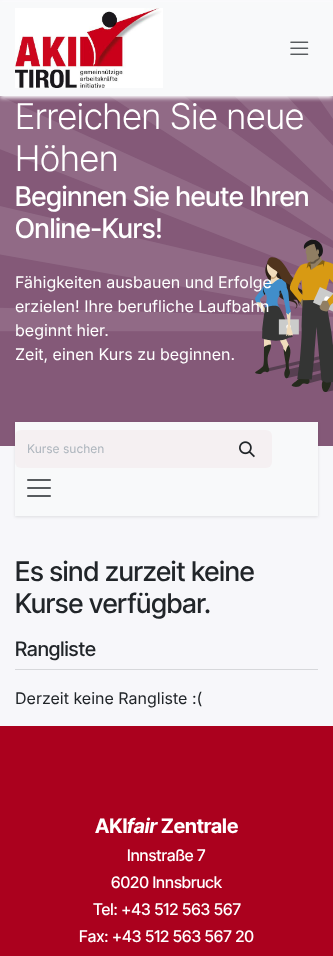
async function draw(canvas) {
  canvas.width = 333;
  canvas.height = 956;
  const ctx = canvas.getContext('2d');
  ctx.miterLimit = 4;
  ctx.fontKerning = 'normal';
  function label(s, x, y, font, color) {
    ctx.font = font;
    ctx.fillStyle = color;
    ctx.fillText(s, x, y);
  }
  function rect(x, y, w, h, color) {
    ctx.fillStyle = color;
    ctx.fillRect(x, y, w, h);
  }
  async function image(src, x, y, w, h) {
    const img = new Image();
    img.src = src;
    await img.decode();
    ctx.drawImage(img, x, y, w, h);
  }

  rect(0, 0, 333, 956, '#f7f7fa');
  await image('assets/img3.png', 0, 96, 333, 350);
  ctx.fillStyle = '#fff';
  ctx.filter = 'blur(2px)';
  ctx.beginPath();
  ctx.rect(0, 2, 333, 96);
  ctx.fill();
  ctx.filter = 'none';
  rect(0, 2, 333, 94, '#f8f9fa');
  await image('assets/img1.png', 15, 8, 148, 80);
  await image('assets/img2.png', 290, 41, 19, 14);
  label('Erreichen Sie neue', 15, 129, '300 35.5px Inter Tight', '#fff');
  label('Höhen', 15, 171, '300 35.5px Inter Tight', '#fff');
  label('Beginnen Sie heute Ihren', 15, 206, '500 27px Inter Tight', '#fff');
  label('Online-Kurs!', 15, 238, '500 27px Inter Tight', '#fff');
  label('Fähigkeiten ausbauen und Erfolge', 15, 288, '16px Inter', '#fff');
  label('erzielen! Ihre berufliche Laufbahn', 15, 312, '16px Inter', '#fff');
  label('beginnt hier.', 15, 336, '16px Inter', '#fff');
  label('Zeit, einen Kurs zu beginnen.', 15, 360, '16px Inter', '#fff');
  ctx.fillStyle = '#0000001a';
  ctx.filter = 'blur(1.5px)';
  ctx.beginPath();
  ctx.rect(15, 423, 303, 94);
  ctx.fill();
  ctx.filter = 'none';
  rect(15, 422, 303, 94, '#f8f9fa');
  ctx.fillStyle = '#f5f0f2';
  ctx.beginPath();
  ctx.roundRect(15, 430, 208, 38, [6, 0, 0, 6]);
  ctx.fill();
  label('Kurse suchen', 27, 453, '12px Inter', '#adb5bd');
  ctx.fillStyle = '#f5f0f2';
  ctx.beginPath();
  ctx.roundRect(222, 430, 50, 38, [0, 6, 6, 0]);
  ctx.fill();
  await image('assets/img4.png', 239, 441, 16, 17);
  await image('assets/img5.png', 27, 479, 24, 18);
  label('Es sind zurzeit keine', 15, 581, '500 27px Inter Tight', '#212529');
  label('Kurse verfügbar.', 15, 613, '500 27px Inter Tight', '#212529');
  label('Rangliste', 15, 656, '500 20px Inter Tight', '#212529');
  rect(15, 669, 303, 1, '#d7d8db');
  label('Derzeit keine Rangliste :(', 15, 704, '16px Inter', '#212529');
  rect(0, 726, 333, 230, '#ab011e');
  label('AKI', 95, 833, 'bold 20px Inter Tight', '#fff');
  label('fair', 127, 833, 'italic bold 20px Inter Tight', '#fff');
  label('Zentrale', 161, 833, 'bold 20px Inter Tight', '#fff');
  label('Innstraße 7', 127, 861, '500 16px Inter Tight', '#fff');
  label('6020 Innsbruck', 111, 888, '500 16px Inter Tight', '#fff');
  label('Tel: +43 512 563 567', 93, 915, '500 16px Inter Tight', '#fff');
  label('Fax: +43 512 563 567 20', 79, 942, '500 16px Inter Tight', '#fff');
}

draw(document.querySelector('canvas'));
